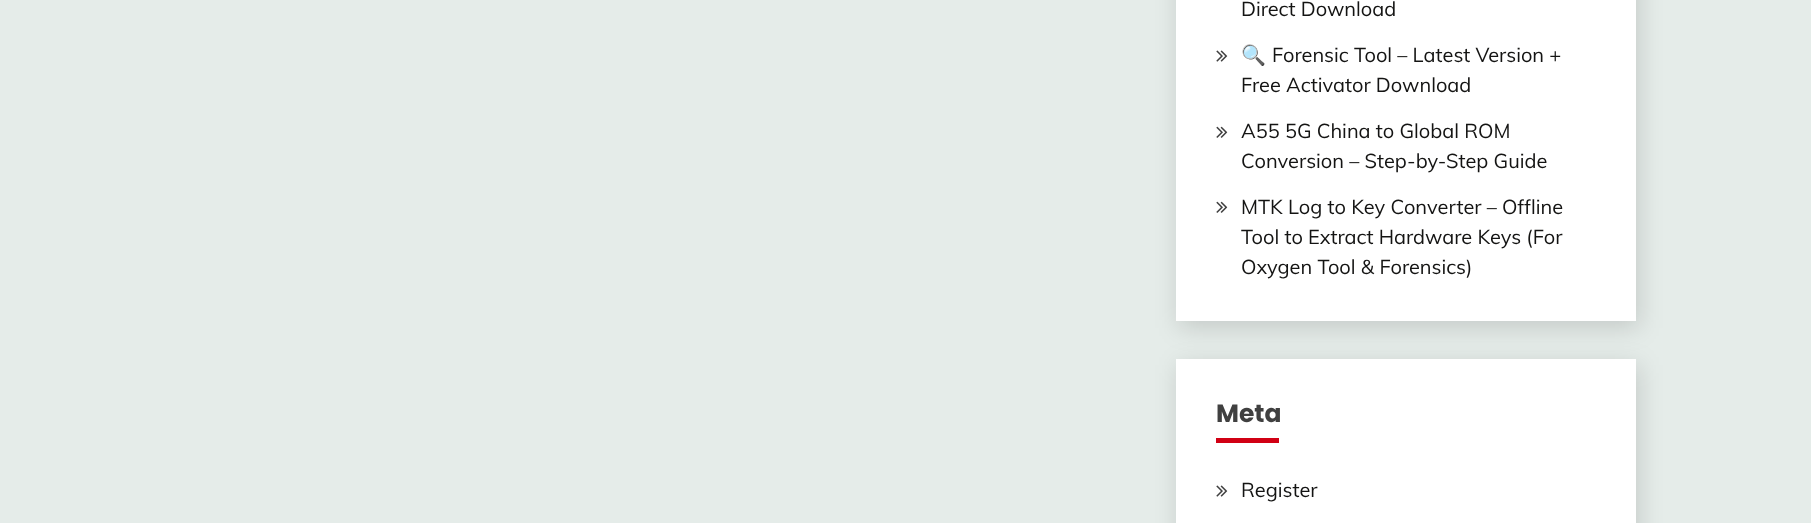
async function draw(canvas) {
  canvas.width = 1811;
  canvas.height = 523;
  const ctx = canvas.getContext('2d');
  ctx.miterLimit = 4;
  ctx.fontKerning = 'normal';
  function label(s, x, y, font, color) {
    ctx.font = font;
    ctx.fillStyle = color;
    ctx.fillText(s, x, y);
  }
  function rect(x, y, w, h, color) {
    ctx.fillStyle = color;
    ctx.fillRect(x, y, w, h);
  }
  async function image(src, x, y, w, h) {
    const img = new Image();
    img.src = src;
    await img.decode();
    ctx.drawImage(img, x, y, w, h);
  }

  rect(0, 0, 1811, 523, '#e5ece9');
  ctx.fillStyle = '#00000024';
  ctx.filter = 'blur(12.5px)';
  ctx.beginPath();
  ctx.rect(1179, -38, 460, 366);
  ctx.fill();
  ctx.filter = 'none';
  rect(1176, 0, 460, 321, '#fff');
  label('Direct Download', 1241, 16, '20px Muli', '#141413');
  await image('assets/img1.png', 1216, 50, 12, 12);
  label('🔍', 1241, 62, '20px Noto Color Emoji', '#141413');
  label('Forensic Tool – Latest Version +', 1272, 62, '20px Muli', '#141413');
  label('Free Activator Download', 1241, 92, '20px Muli', '#141413');
  await image('assets/img2.png', 1216, 126, 12, 12);
  label('A55 5G China to Global ROM', 1241, 138, '20px Muli', '#141413');
  label('Conversion – Step-by-Step Guide', 1241, 168, '20px Muli', '#141413');
  await image('assets/img2.png', 1216, 201, 12, 12);
  label('MTK Log to Key Converter – Offline', 1241, 214, '20px Muli', '#141413');
  label('Tool to Extract Hardware Keys (For', 1241, 244, '20px Muli', '#141413');
  label('Oxygen Tool & Forensics)', 1241, 274, '20px Muli', '#141413');
  ctx.fillStyle = '#00000024';
  ctx.filter = 'blur(12.5px)';
  ctx.beginPath();
  ctx.rect(1179, 365, 460, 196);
  ctx.fill();
  ctx.filter = 'none';
  rect(1176, 359, 460, 164, '#fff');
  label('Meta', 1216, 422, 'bold 25px Poppins', '#404040');
  rect(1216, 438, 63, 5, '#d10014');
  await image('assets/img1.png', 1216, 485, 12, 12);
  label('Register', 1241, 497, '20px Muli', '#141413');
}

draw(document.querySelector('canvas'));
